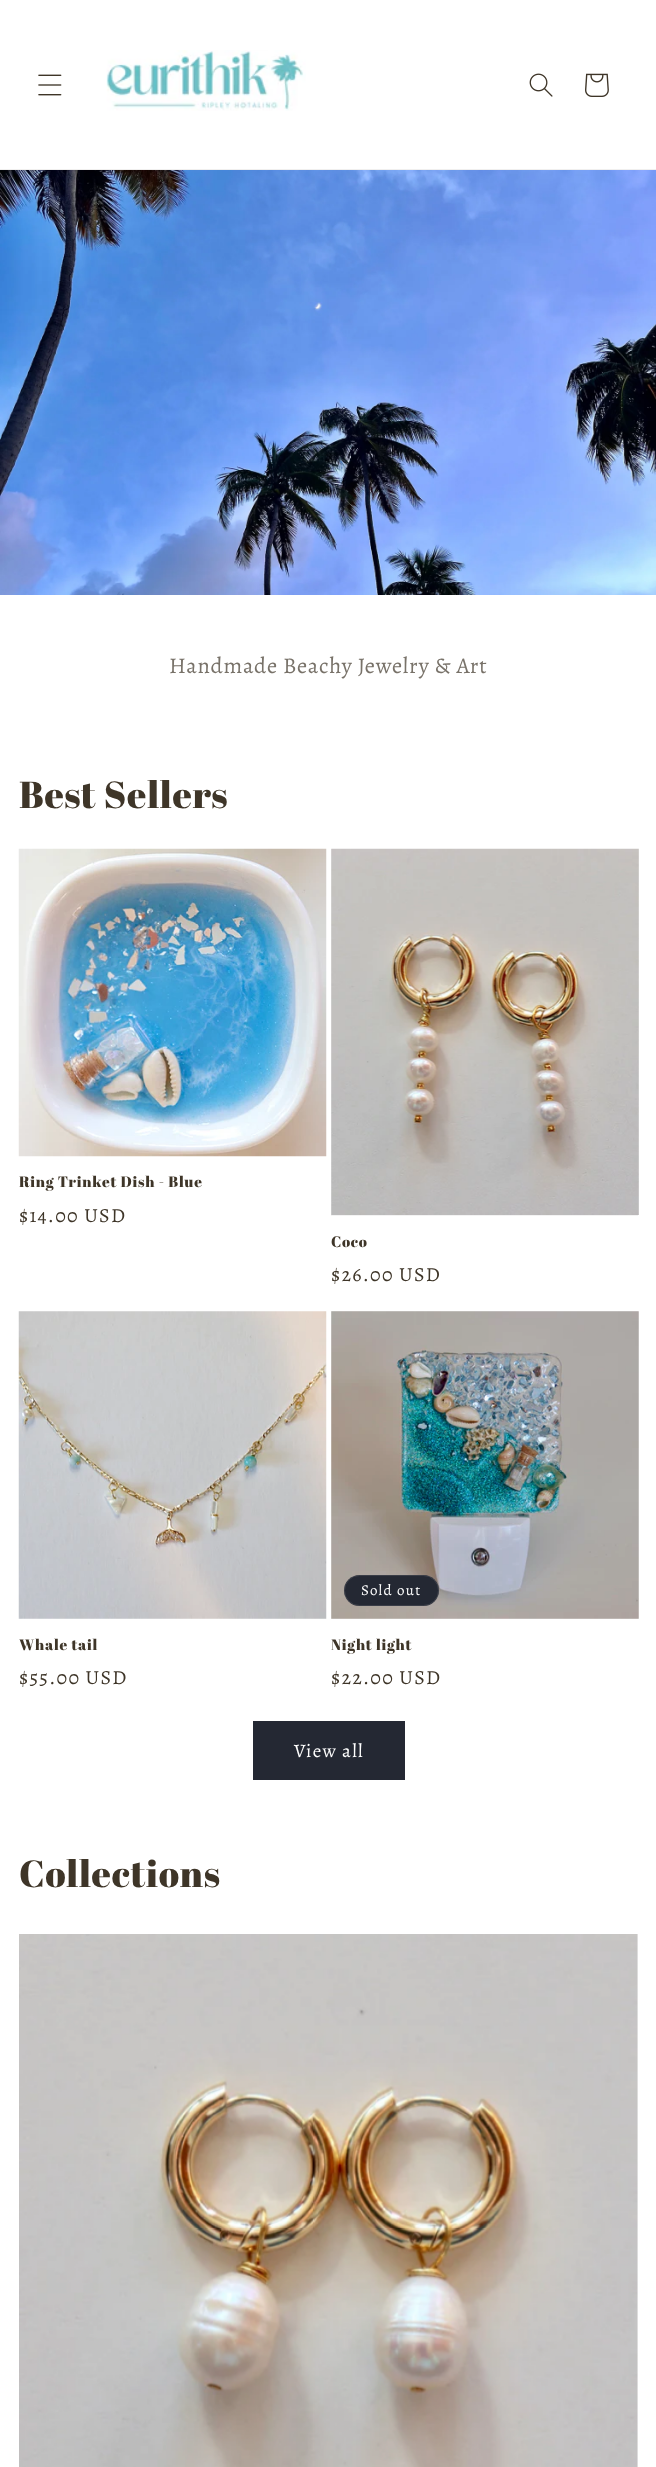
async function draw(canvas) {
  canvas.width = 656;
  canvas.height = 2467;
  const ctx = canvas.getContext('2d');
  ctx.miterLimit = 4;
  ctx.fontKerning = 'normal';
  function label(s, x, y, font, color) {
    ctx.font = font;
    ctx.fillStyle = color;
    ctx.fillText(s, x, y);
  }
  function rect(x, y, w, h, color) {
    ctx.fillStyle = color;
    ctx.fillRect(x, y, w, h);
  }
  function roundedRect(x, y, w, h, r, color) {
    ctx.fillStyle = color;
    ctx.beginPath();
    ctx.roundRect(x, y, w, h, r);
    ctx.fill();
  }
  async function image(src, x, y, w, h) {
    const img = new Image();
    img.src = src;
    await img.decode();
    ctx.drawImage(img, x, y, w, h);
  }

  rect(0, 0, 656, 2467, '#fff');
  rect(0, 169, 656, 1, '#f0efee');
  await image('assets/img1.png', 38, 74, 24, 22);
  await image('assets/img2.png', 106, 50, 200, 61);
  await image('assets/img3.png', 529, 73, 24, 24);
  await image('assets/img4.png', 585, 73, 24, 24);
  await image('assets/img5.png', 0, 170, 656, 425);
  ctx.letterSpacing = '0.75px';
  label('Handmade Beachy Jewelry & Art', 169, 673, '22.5px Alegreya', '#787269');
  label('Best Sellers', 19, 808, '37.5px Abril Fatface', '#3e3528');
  await image('assets/img6.png', 18, 848, 309, 309);
  label('Ring Trinket Dish - Blue', 19, 1187, '15px Abril Fatface', '#3e3528');
  ctx.letterSpacing = '1.25px';
  label('$14.00 USD', 19, 1222, '20px Alegreya', '#3e3528');
  rect(331, 849, 307, 367, '#f3f3f3');
  await image('assets/img7.png', 331, 848, 308, 367);
  ctx.letterSpacing = '0.75px';
  label('Coco', 331, 1247, '15px Abril Fatface', '#3e3528');
  ctx.letterSpacing = '1.25px';
  label('$26.00 USD', 331, 1281, '20px Alegreya', '#3e3528');
  await image('assets/img8.png', 18, 1311, 309, 308);
  ctx.letterSpacing = '0.75px';
  label('Whale tail', 19, 1650, '15px Abril Fatface', '#3e3528');
  ctx.letterSpacing = '1.25px';
  label('$55.00 USD', 19, 1684, '20px Alegreya', '#3e3528');
  rect(331, 1311, 307, 308, '#f3f3f3');
  await image('assets/img9.png', 331, 1311, 308, 308);
  roundedRect(344, 1575, 95, 31, 15.5, '#242833');
  ctx.beginPath();
  ctx.roundRect(344.5, 1575.5, 94, 30, 15);
  ctx.strokeStyle = '#ffffff1a';
  ctx.stroke();
  label('Sold out', 361, 1595, '15px Alegreya', '#fff');
  ctx.letterSpacing = '0.75px';
  label('Night light', 331, 1650, '15px Abril Fatface', '#3e3528');
  ctx.letterSpacing = '1.25px';
  label('$22.00 USD', 331, 1684, '20px Alegreya', '#3e3528');
  rect(253, 1721, 152, 59, '#242833');
  label('View all', 294, 1757, '19px Alegreya', '#fff');
  ctx.letterSpacing = '0.75px';
  label('Collections', 19, 1887, '37.5px Abril Fatface', '#3e3528');
  rect(637, 1934, 1, 533, '#f3f3f3');
  await image('assets/img10.png', 19, 1934, 619, 533);
}

draw(document.querySelector('canvas'));
